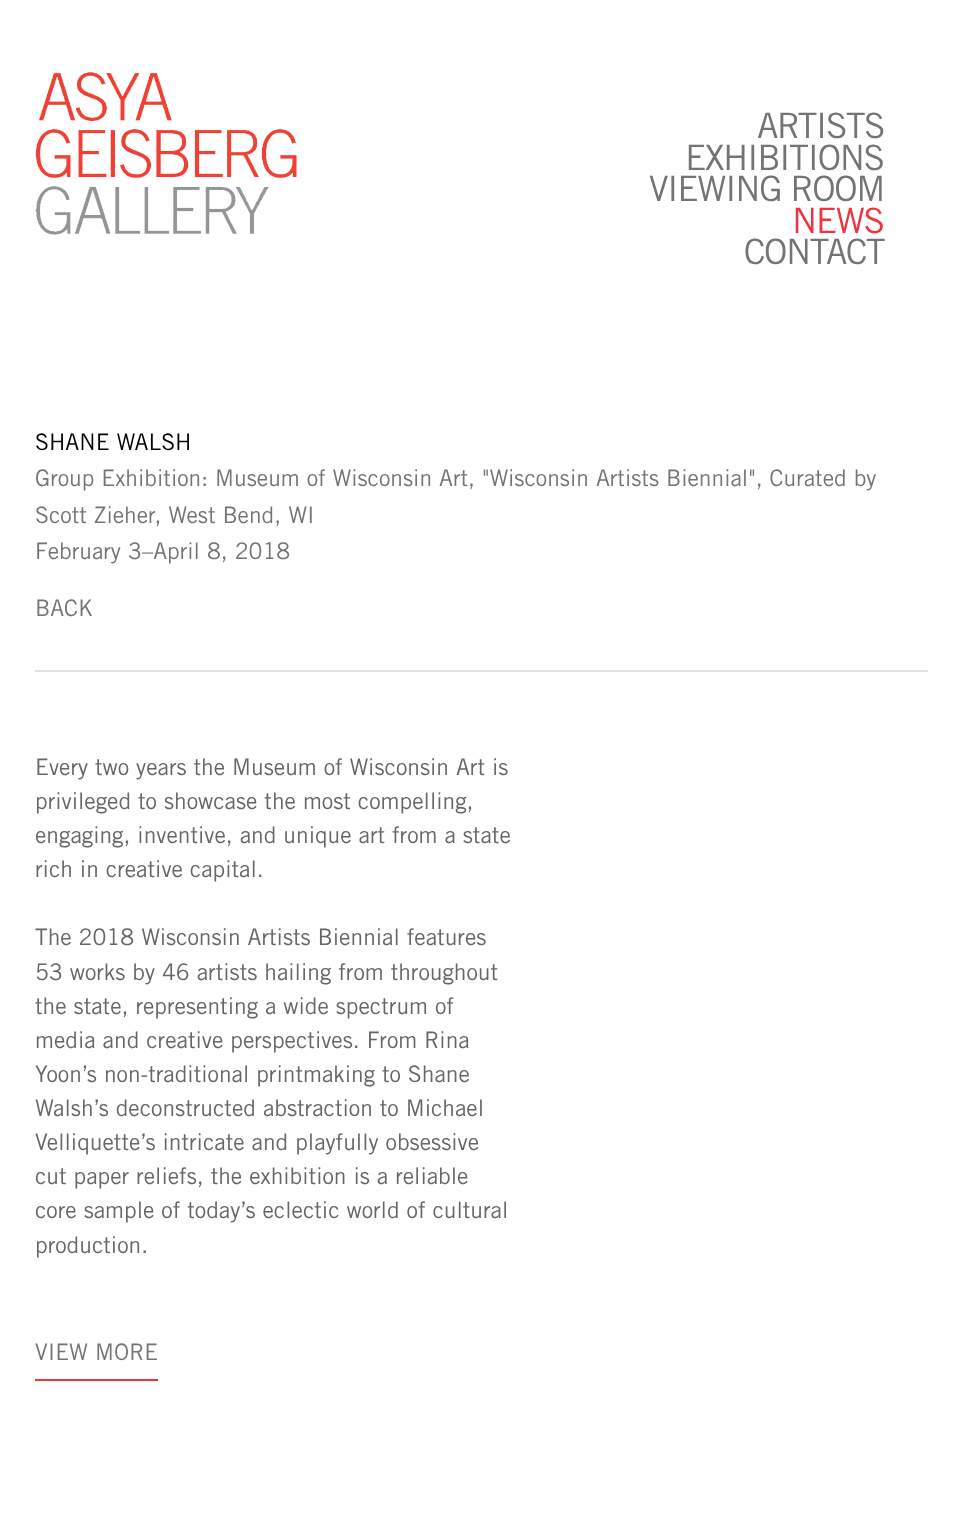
async function draw(canvas) {
  canvas.width = 962;
  canvas.height = 1513;
  const ctx = canvas.getContext('2d');
  ctx.miterLimit = 4;
  ctx.fontKerning = 'normal';
  function label(s, x, y, font, color) {
    ctx.font = font;
    ctx.fillStyle = color;
    ctx.fillText(s, x, y);
  }
  function rect(x, y, w, h, color) {
    ctx.fillStyle = color;
    ctx.fillRect(x, y, w, h);
  }
  async function image(src, x, y, w, h) {
    const img = new Image();
    img.src = src;
    await img.decode();
    ctx.drawImage(img, x, y, w, h);
  }

  rect(0, 0, 962, 1513, '#fff');
  await image('assets/img1.png', 35, 72, 262, 163);
  ctx.letterSpacing = '-1.4px';
  label('ARTISTS', 757, 138, '35px Trade Gothic', '#757373');
  label('EXHIBITIONS', 685, 170, '35px Trade Gothic', '#757373');
  label('VIEWING ROOM', 649, 201, '35px Trade Gothic', '#757373');
  label('NEWS', 792, 233, '35px Trade Gothic', '#ef3340');
  label('CONTACT', 744, 264, '35px Trade Gothic', '#757373');
  rect(35, 670, 893, 2, '#e3e3e3');
  ctx.letterSpacing = '0px';
  label('SHANE WALSH', 35, 450, '22.75px Trade Gothic', '#000');
  label('Group Exhibition: Museum of Wisconsin Art, "Wisconsin Artists Biennial", Curated by', 35, 486, '22.75px Trade Gothic', '#757373');
  label('Scott Zieher, West Bend, WI', 35, 523, '22.75px Trade Gothic', '#757373');
  label('February 3–April 8, 2018', 35, 559, '22.75px Trade Gothic', '#757373');
  label('BACK', 35, 616, '22.75px Trade Gothic', '#757373');
  label('Every two years the Museum of Wisconsin Art is', 35, 775, '22.75px Trade Gothic', '#666');
  label('privileged to showcase the most compelling,', 35, 809, '22.75px Trade Gothic', '#666');
  label('engaging, inventive, and unique art from a state', 35, 843, '22.75px Trade Gothic', '#666');
  label('rich in creative capital.', 35, 877, '22.75px Trade Gothic', '#666');
  label('The 2018 Wisconsin Artists Biennial features', 35, 945, '22.75px Trade Gothic', '#666');
  label('53 works by 46 artists hailing from throughout', 35, 980, '22.75px Trade Gothic', '#666');
  label('the state, representing a wide spectrum of', 35, 1014, '22.75px Trade Gothic', '#666');
  label('media and creative perspectives. From Rina', 35, 1048, '22.75px Trade Gothic', '#666');
  label('Yoon’s non-traditional printmaking to Shane', 35, 1082, '22.75px Trade Gothic', '#666');
  label('Walsh’s deconstructed abstraction to Michael', 35, 1116, '22.75px Trade Gothic', '#666');
  label('Velliquette’s intricate and playfully obsessive', 35, 1150, '22.75px Trade Gothic', '#666');
  label('cut paper reliefs, the exhibition is a reliable', 35, 1184, '22.75px Trade Gothic', '#666');
  label('core sample of today’s eclectic world of cultural', 35, 1218, '22.75px Trade Gothic', '#666');
  label('production.', 35, 1253, '22.75px Trade Gothic', '#666');
  rect(35, 1379, 123, 2, '#ef3340');
  label('VIEW MORE', 35, 1360, '22.75px Trade Gothic', '#757373');
}

draw(document.querySelector('canvas'));
